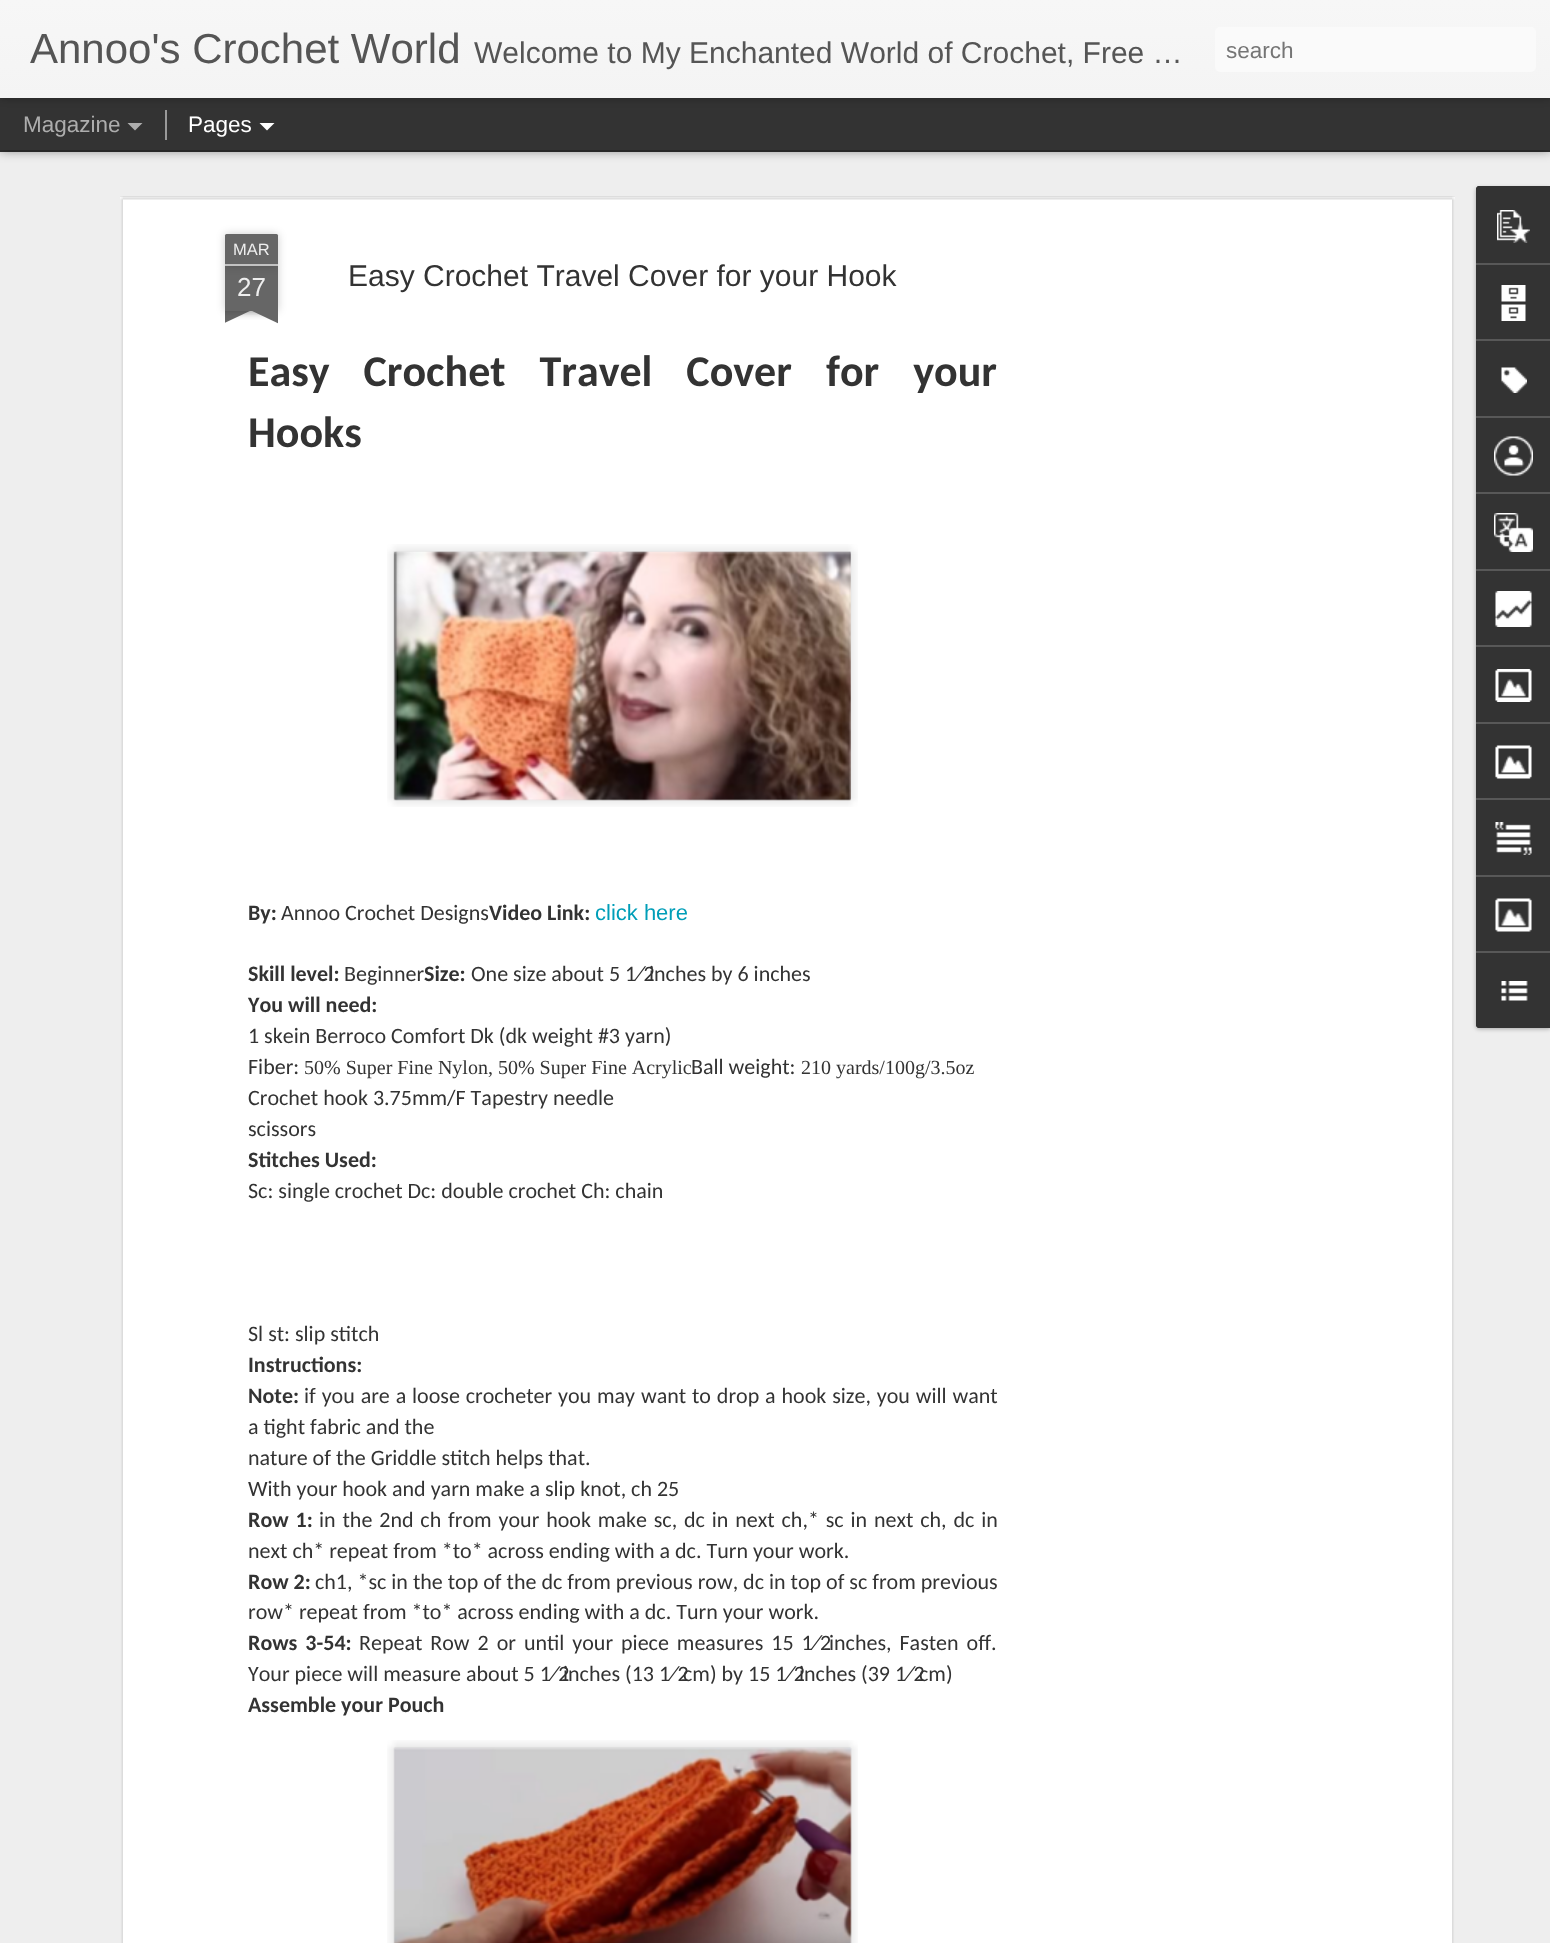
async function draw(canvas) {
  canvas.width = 1550;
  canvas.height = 1943;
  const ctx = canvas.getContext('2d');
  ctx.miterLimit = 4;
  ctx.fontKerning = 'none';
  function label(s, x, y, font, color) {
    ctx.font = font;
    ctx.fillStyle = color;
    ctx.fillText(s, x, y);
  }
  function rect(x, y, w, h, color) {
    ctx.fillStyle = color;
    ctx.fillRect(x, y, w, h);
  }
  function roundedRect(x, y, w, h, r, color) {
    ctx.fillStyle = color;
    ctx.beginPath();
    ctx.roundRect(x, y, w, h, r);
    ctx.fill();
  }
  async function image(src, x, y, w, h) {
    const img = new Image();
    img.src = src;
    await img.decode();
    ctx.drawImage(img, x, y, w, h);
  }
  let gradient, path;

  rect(0, 0, 1550, 1943, '#333');
  rect(0, 152, 1550, 1791, '#eee');
  ctx.fillStyle = '#00000080';
  ctx.filter = 'blur(6px)';
  ctx.beginPath();
  ctx.rect(0, 98, 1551, 52);
  ctx.fill();
  ctx.filter = 'none';
  rect(0, 98, 1550, 52, '#333');
  rect(165, 110, 2, 30, '#999');
  ctx.fillStyle = '#0000004d';
  ctx.filter = 'blur(4px)';
  ctx.beginPath();
  ctx.rect(0, 0, 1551, 98);
  ctx.fill();
  ctx.filter = 'none';
  gradient = ctx.createLinearGradient(0, 0, 0, 98);
  gradient.addColorStop(0, '#f7f7f7');
  gradient.addColorStop(1, '#f4f4f4');
  ctx.fillStyle = gradient;
  ctx.fillRect(0, 0, 1550, 98);
  label('Annoo\'s Crochet World', 30, 63, '42px Liberation Sans', '#555');
  label('Welcome to My Enchanted World of Crochet, Free …', 474, 63, '30px Liberation Sans', '#555');
  roundedRect(1215, 27, 321, 45, 5, '#fafafa');
  label('search', 1226, 58, '22.5px Liberation Sans', '#757575');
  label('Magazine', 23, 132, '22.5px Liberation Sans', '#adadad');
  path = new Path2D('M127.5 123H142.5L135 130.5Z');
  ctx.fill(path);
  label('Pages', 188, 132, '22.5px Liberation Sans', '#fff');
  path = new Path2D('M259.5 123H274.5L267 130.5Z');
  ctx.fill(path);
  rect(120, 197, 1335, 1746, '#fff');
  await image('assets/img1.png', 120, 196, 1335, 1747);
  ctx.fillStyle = '#00000033';
  ctx.filter = 'blur(4px)';
  ctx.beginPath();
  ctx.rect(225, 266, 53, 45);
  ctx.fill();
  ctx.filter = 'none';
  rect(225, 266, 53, 45, '#666');
  ctx.fillStyle = '#00000033';
  ctx.filter = 'blur(4px)';
  ctx.beginPath();
  ctx.roundRect(225, 234, 53, 32, 1.5);
  ctx.fill();
  ctx.filter = 'none';
  ctx.fillStyle = '#666';
  ctx.beginPath();
  ctx.roundRect(225, 234, 53, 32, [1.5, 1.5, 0, 0]);
  ctx.fill();
  rect(225, 264, 53, 2, '#c2c2c2');
  label('MAR', 233, 255, '16.5px Liberation Sans', '#eee');
  label('27', 237, 296, '26px Liberation Sans', '#eee');
  ctx.save();
  ctx.beginPath();
  ctx.rect(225, 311, 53, 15);
  ctx.clip();
  ctx.fillStyle = '#00000033';
  ctx.filter = 'blur(4px)';
  ctx.beginPath();
  ctx.rect(212, 296, 75, 15);
  ctx.fill();
  ctx.filter = 'none';
  ctx.restore();
  ctx.save();
  ctx.beginPath();
  ctx.rect(225, 311, 53, 15);
  ctx.clip();
  ctx.fillStyle = '#666';
  path = new Path2D('M212 312L280 280L286 294L218 326Z');
  ctx.fill(path);
  ctx.restore();
  ctx.save();
  ctx.beginPath();
  ctx.rect(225, 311, 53, 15);
  ctx.clip();
  ctx.fillStyle = '#00000033';
  ctx.filter = 'blur(4px)';
  ctx.beginPath();
  ctx.rect(216, 296, 75, 15);
  ctx.fill();
  ctx.filter = 'none';
  ctx.restore();
  ctx.save();
  ctx.beginPath();
  ctx.rect(225, 311, 53, 15);
  ctx.clip();
  ctx.fillStyle = '#666';
  path = new Path2D('M223 280L291 312L284 326L216 294Z');
  ctx.fill(path);
  ctx.restore();
  label('Easy Crochet Travel Cover for your Hook', 348, 286, '30px Liberation Sans', '#333');
  ctx.wordSpacing = '24px';
  label('Easy Crochet Travel Cover', 248, 386, 'bold 44px Carlito', '#333');
  label('for your', 826, 386, 'bold 44px Carlito', '#333');
  ctx.wordSpacing = '0px';
  label('Hooks', 248, 447, 'bold 44px Carlito', '#333');
  await image('assets/img2.png', 387, 544, 471, 263);
  await image('assets/img3.png', 393, 551, 458, 250);
  label('By:', 248, 920, 'bold 22px Carlito', '#333');
  label('Annoo Crochet Designs', 281, 920, '22px Carlito', '#333');
  label('Video Link:', 489, 920, 'bold 22px Carlito', '#333');
  label('click here', 595, 920, '22px Liberation Sans', '#009eb8');
  label('Skill level:', 248, 981, 'bold 22px Carlito', '#333');
  label('Beginner', 344, 981, '22px Carlito', '#333');
  label('Size:', 424, 981, 'bold 22px Carlito', '#333');
  label('One size about 5 1⁄2', 471, 981, '22px Carlito', '#333');
  label('inches by 6 inches', 649, 981, '22px Carlito', '#333');
  label('You will need:', 248, 1012, 'bold 22px Carlito', '#333');
  label('1 skein Berroco Comfort Dk (dk weight #3 yarn)', 248, 1043, '22px Carlito', '#333');
  label('Fiber:', 248, 1074, '22px Carlito', '#333');
  label('50% Super Fine Nylon, 50% Super Fine Acrylic', 304, 1074, '20px Liberation Serif', '#333');
  label('Ball weight:', 691, 1074, '22px Carlito', '#333');
  label('210 yards/100g/3.5oz', 801, 1074, '20px Liberation Serif', '#333');
  label('Crochet hook 3.75mm/F Tapestry needle', 248, 1105, '22px Carlito', '#333');
  label('scissors', 248, 1136, '22px Carlito', '#333');
  label('Stitches Used:', 248, 1167, 'bold 22px Carlito', '#333');
  label('Sc: single crochet Dc: double crochet Ch: chain', 248, 1198, '22px Carlito', '#333');
  label('Sl st: slip stitch', 248, 1341, '22px Carlito', '#333');
  label('Instructions:', 248, 1372, 'bold 22px Carlito', '#333');
  label('Note:', 248, 1403, 'bold 22px Carlito', '#333');
  ctx.wordSpacing = '0.9px';
  label('if you are a loose crocheter you may want to drop a hook size, you will want', 304, 1403, '22px Carlito', '#333');
  ctx.wordSpacing = '0px';
  label('a tight fabric and the', 248, 1434, '22px Carlito', '#333');
  label('nature of the Griddle stitch helps that.', 248, 1465, '22px Carlito', '#333');
  label('With your hook and yarn make a slip knot, ch 25', 248, 1496, '22px Carlito', '#333');
  ctx.wordSpacing = '2px';
  label('Row 1:', 248, 1527, 'bold 22px Carlito', '#333');
  ctx.wordSpacing = '1.9px';
  label('in the 2nd ch from your hook make sc, dc in next ch,* sc in next ch, dc in', 319, 1527, '22px Carlito', '#333');
  ctx.wordSpacing = '0px';
  label('next ch* repeat from *to* across ending with a dc. Turn your work.', 248, 1558, '22px Carlito', '#333');
  label('Row 2:', 248, 1589, 'bold 22px Carlito', '#333');
  label('ch1, *sc in the top of the dc from previous row, dc in top of sc from previous', 315, 1589, '22px Carlito', '#333');
  label('row* repeat from *to* across ending with a dc. Turn your work.', 248, 1619, '22px Carlito', '#333');
  ctx.wordSpacing = '3px';
  label('Rows 3-54:', 248, 1650, 'bold 22px Carlito', '#333');
  label('Repeat Row 2 or until your piece measures 15 1⁄2', 359, 1650, '22px Carlito', '#333');
  label('inches, Fasten off.', 829, 1650, '22px Carlito', '#333');
  ctx.wordSpacing = '0px';
  label('Your piece will measure about 5 1⁄2', 248, 1681, '22px Carlito', '#333');
  label('inches (13 1⁄2', 563, 1681, '22px Carlito', '#333');
  label('cm) by 15 1⁄2', 683, 1681, '22px Carlito', '#333');
  label('inches (39 1⁄2', 799, 1681, '22px Carlito', '#333');
  label('cm)', 919, 1681, '22px Carlito', '#333');
  label('Assemble your Pouch', 248, 1712, 'bold 22px Carlito', '#333');
  await image('assets/img4.png', 387, 1740, 471, 203);
  await image('assets/img5.png', 393, 1748, 459, 195);
  ctx.fillStyle = '#0000004d';
  ctx.filter = 'blur(2px)';
  ctx.beginPath();
  ctx.roundRect(1476, 188, 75, 841, 3);
  ctx.fill();
  ctx.filter = 'none';
  ctx.fillStyle = '#333';
  path = new Path2D('M1479 186H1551V1028H1479C1477.5 1028 1476 1026.5 1476 1025V189C1476 187.5 1477.5 186 1479 186Z');
  ctx.fill(path);
  path = new Path2D('M1479 186H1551V263H1476V189C1476 187.5 1477.5 186 1479 186Z');
  ctx.fill(path);
  await image('assets/img6.png', 1497, 210, 33, 33);
  rect(1476, 263, 74, 2, '#585858');
  await image('assets/img7.png', 1501, 285, 25, 36);
  rect(1476, 339, 74, 2, '#585858');
  await image('assets/img8.png', 1501, 367, 26, 26);
  rect(1476, 416, 74, 2, '#585858');
  await image('assets/img9.png', 1494, 436, 39, 40);
  rect(1476, 492, 74, 2, '#585858');
  await image('assets/img10.png', 1494, 513, 39, 39);
  rect(1476, 569, 74, 2, '#585858');
  await image('assets/img11.png', 1495, 591, 37, 36);
  rect(1476, 645, 74, 2, '#585858');
  await image('assets/img12.png', 1495, 669, 37, 33);
  rect(1476, 722, 74, 2, '#585858');
  await image('assets/img13.png', 1495, 745, 37, 34);
  rect(1476, 798, 74, 2, '#585858');
  await image('assets/img14.png', 1495, 822, 37, 33);
  rect(1476, 875, 74, 2, '#585858');
  await image('assets/img15.png', 1495, 898, 37, 34);
  ctx.fillStyle = '#333';
  path = new Path2D('M1476 951H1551V1028H1479C1477.5 1028 1476 1026.5 1476 1025Z');
  ctx.fill(path);
  rect(1476, 951, 74, 2, '#585858');
  await image('assets/img16.png', 1501, 981, 27, 20);
}

draw(document.querySelector('canvas'));
